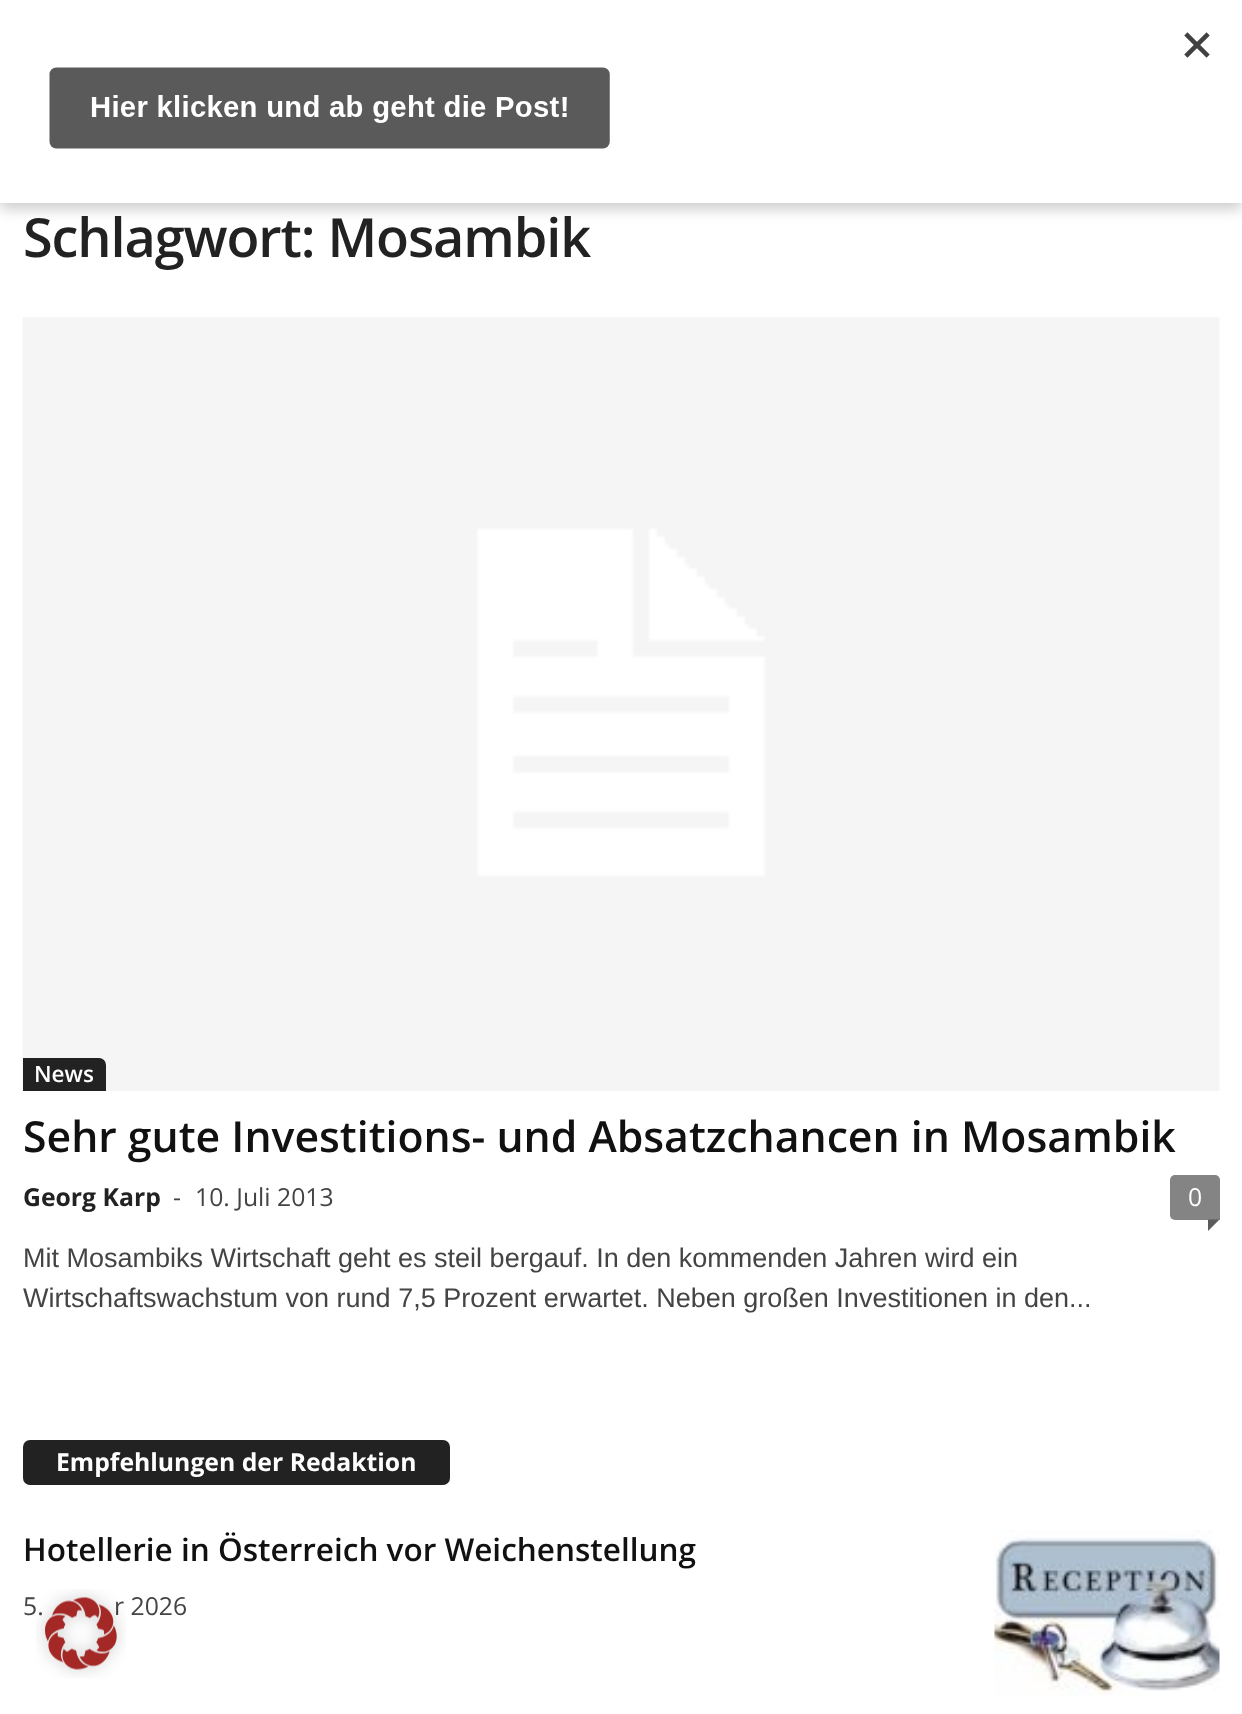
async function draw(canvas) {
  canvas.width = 1242;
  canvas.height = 1714;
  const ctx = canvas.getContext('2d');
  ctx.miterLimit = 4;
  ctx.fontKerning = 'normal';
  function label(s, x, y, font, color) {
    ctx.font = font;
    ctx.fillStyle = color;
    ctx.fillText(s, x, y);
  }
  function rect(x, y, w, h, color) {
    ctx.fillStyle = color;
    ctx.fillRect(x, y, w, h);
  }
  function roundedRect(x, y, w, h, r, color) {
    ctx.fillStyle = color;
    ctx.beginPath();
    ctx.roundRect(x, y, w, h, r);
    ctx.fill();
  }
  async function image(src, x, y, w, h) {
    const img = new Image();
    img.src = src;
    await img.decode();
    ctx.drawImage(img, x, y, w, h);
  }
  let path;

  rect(0, 0, 1242, 1714, '#fff');
  ctx.fillStyle = '#00000033';
  ctx.filter = 'blur(7px)';
  ctx.beginPath();
  ctx.rect(0, 7, 1242, 202);
  ctx.fill();
  ctx.filter = 'none';
  rect(0, 0, 1242, 203, '#fff');
  await image('assets/img1.png', 49, 32, 1161, 117);
  ctx.letterSpacing = '-1.1px';
  label('Schlagwort: Mosambik', 23, 257, '600 54px Open Sans', '#222');
  await image('assets/img2.png', 22, 317, 1198, 774);
  ctx.beginPath();
  ctx.roundRect(23, 1058, 83, 33, [0, 7, 0, 0]);
  ctx.fill();
  ctx.letterSpacing = '0px';
  label('News', 34, 1082, '600 22.5px Open Sans', '#fff');
  label('Sehr gute Investitions- und Absatzchancen in Mosambik', 23, 1152, '600 42.75px Open Sans', '#111');
  label('Georg Karp', 23, 1206, 'bold 24.75px Open Sans', '#222');
  label('-', 173, 1206, '24.75px Open Sans', '#444');
  label('10. Juli 2013', 195, 1206, '24.75px Open Sans', '#444');
  ctx.fillStyle = '#848484';
  ctx.beginPath();
  ctx.roundRect(1170, 1175, 50, 45, [5, 5, 0, 5]);
  ctx.fill();
  label('0', 1188, 1206, '24.75px Open Sans', '#fff');
  ctx.fillStyle = '#5b5b5b';
  path = new Path2D('M1208 1219.5H1219.5L1208 1231Z');
  ctx.fill(path);
  label('Mit Mosambiks Wirtschaft geht es steil bergauf. In den kommenden Jahren wird ein', 23, 1267, '27px Liberation Sans', '#444');
  label('Wirtschaftswachstum von rund 7,5 Prozent erwartet. Neben großen Investitionen in den...', 23, 1307, '27px Liberation Sans', '#444');
  roundedRect(23, 1440, 427, 45, 7, '#222');
  label('Empfehlungen der Redaktion', 56, 1471, 'bold 24.75px Open Sans', '#fff');
  label('Hotellerie in Österreich vor Weichenstellung', 23, 1561, '600 31.5px Open Sans', '#111');
  label('5.', 23, 1615, '24.75px Open Sans', '#444');
  label('r 2026', 114, 1615, '24.75px Open Sans', '#444');
  await image('assets/img3.png', 994, 1530, 226, 167);
  await image('assets/img4.png', 36, 1589, 90, 89);
}

draw(document.querySelector('canvas'));
